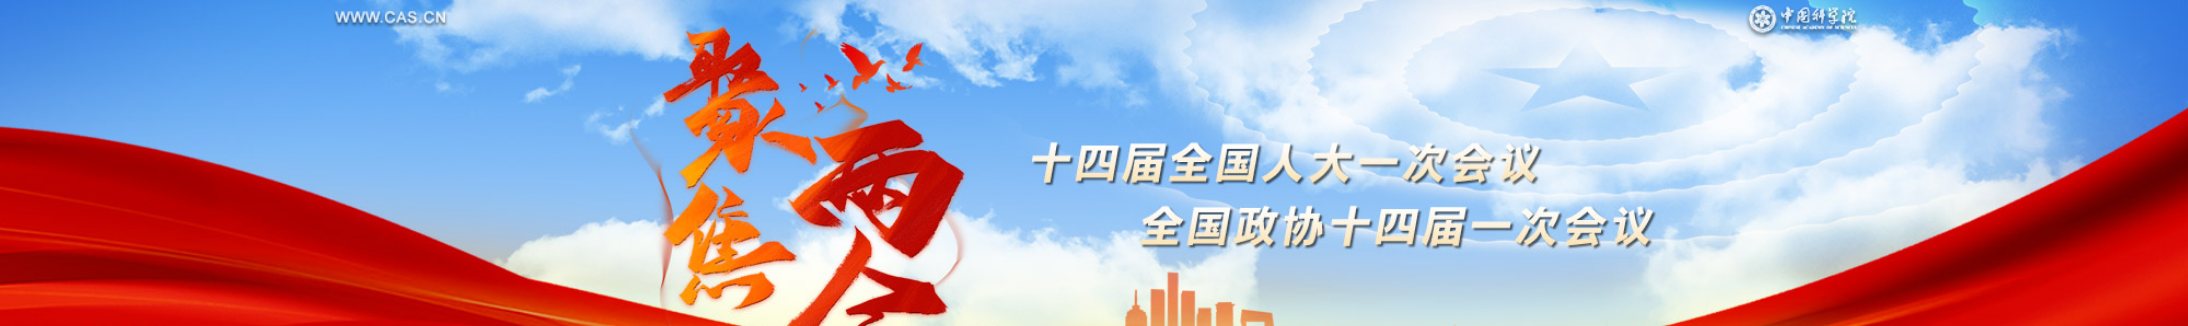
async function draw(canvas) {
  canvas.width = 2188;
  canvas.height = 326;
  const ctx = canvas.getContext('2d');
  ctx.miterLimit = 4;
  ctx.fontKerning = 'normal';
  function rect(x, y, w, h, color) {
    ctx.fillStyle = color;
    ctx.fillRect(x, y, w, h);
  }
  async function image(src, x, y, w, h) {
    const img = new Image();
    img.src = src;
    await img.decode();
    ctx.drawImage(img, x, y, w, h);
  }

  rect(0, 0, 2188, 326, '#fff');
  await image('assets/img1.png', 0, 0, 2188, 326);
  await image('assets/img2.png', 333, 11, 115, 17);
  await image('assets/img3.png', 1746, 4, 113, 34);
}

draw(document.querySelector('canvas'));
